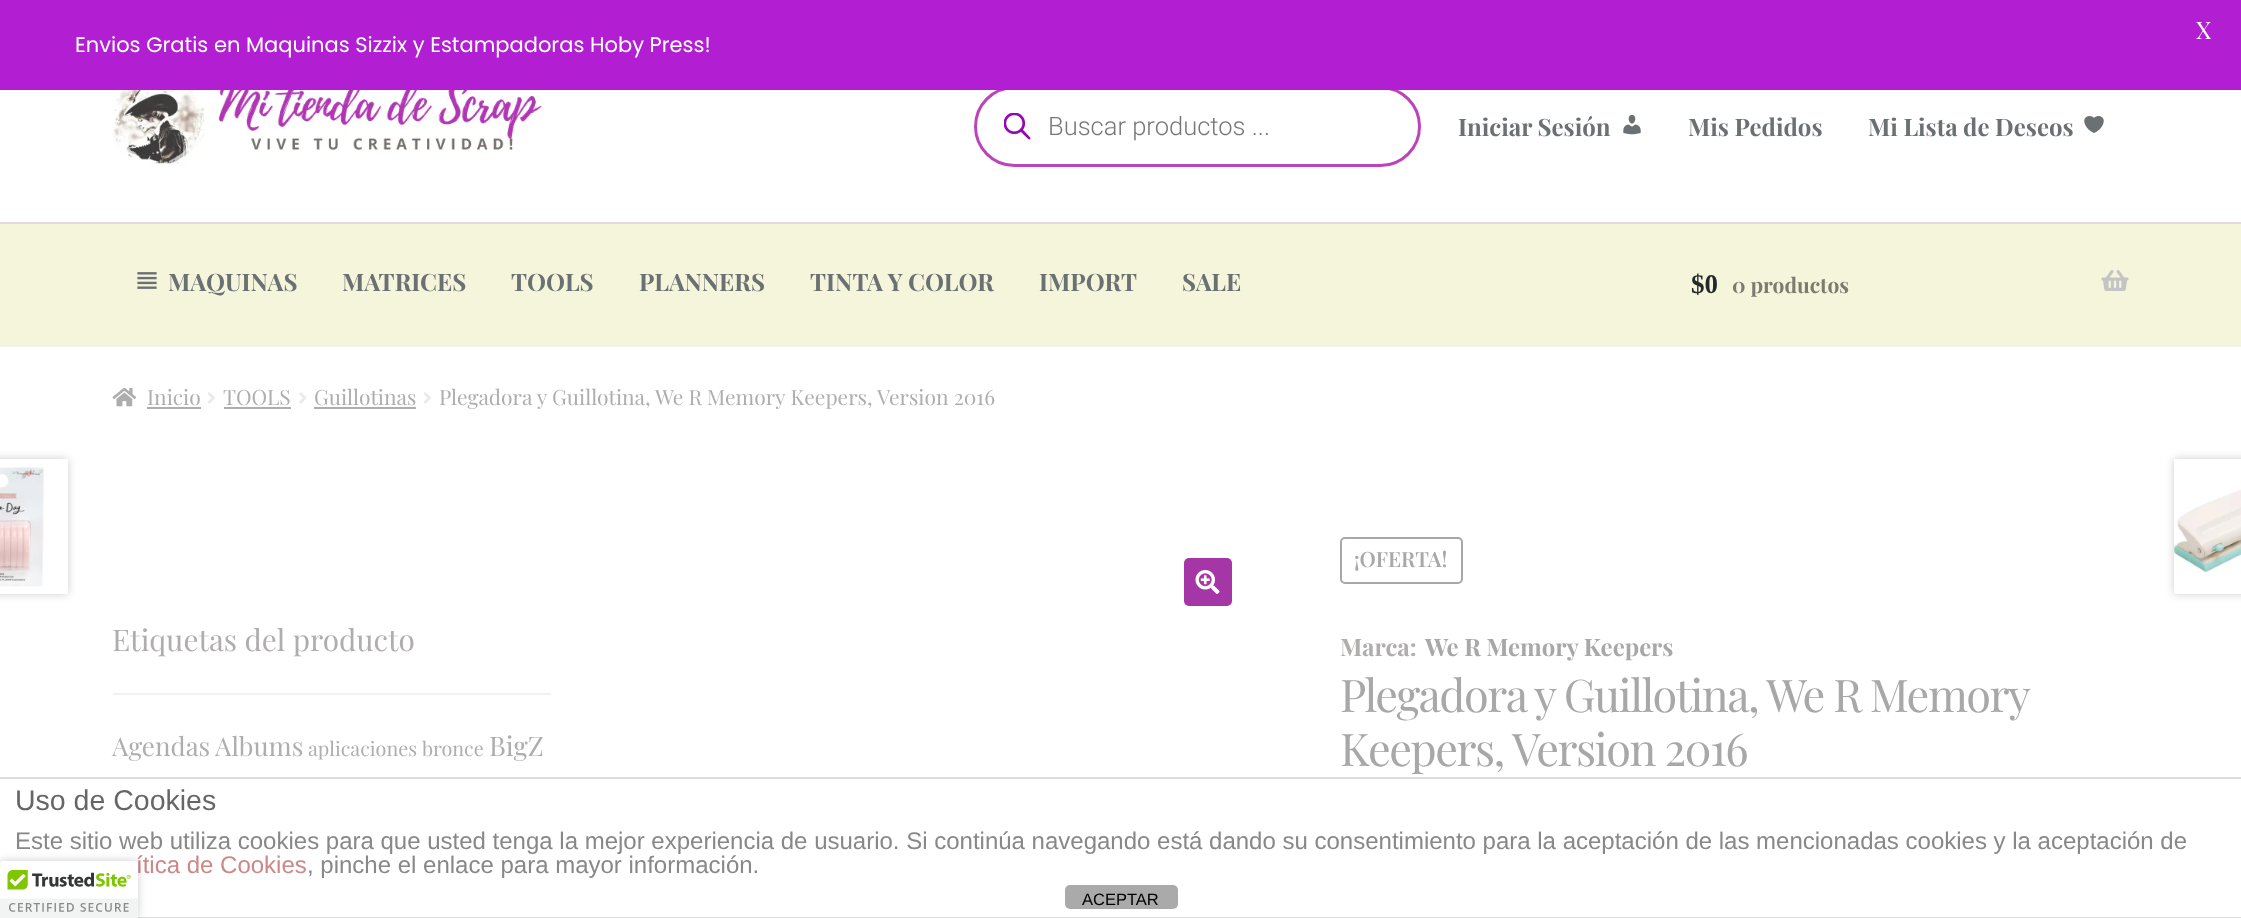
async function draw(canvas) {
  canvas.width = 2241;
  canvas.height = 918;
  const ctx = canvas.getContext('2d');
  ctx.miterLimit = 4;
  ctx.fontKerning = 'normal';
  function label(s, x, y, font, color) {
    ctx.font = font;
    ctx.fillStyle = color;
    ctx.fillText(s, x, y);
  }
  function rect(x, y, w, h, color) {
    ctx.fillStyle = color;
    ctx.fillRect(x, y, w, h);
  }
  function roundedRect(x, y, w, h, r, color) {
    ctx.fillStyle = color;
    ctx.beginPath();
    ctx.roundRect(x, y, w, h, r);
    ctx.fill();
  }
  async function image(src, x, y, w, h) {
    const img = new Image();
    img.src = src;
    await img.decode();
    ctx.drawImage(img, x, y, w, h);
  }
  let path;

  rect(0, 0, 2241, 918, '#fff');
  ctx.beginPath();
  ctx.roundRect(975.5, 87.5, 444, 78, 39);
  ctx.strokeStyle = '#bc43bc';
  ctx.lineWidth = 3;
  ctx.stroke();
  rect(0, 0, 2241, 90, '#b21fd3');
  label('X', 2196, 39, '24px Playfair Display', '#fff');
  label('Envios Gratis en Maquinas Sizzix y Estampadoras Hoby Press!', 75, 52, '21px Poppins', '#fff');
  rect(0, 345, 2241, 2, '#f0f0f0');
  await image('assets/img1.png', 112, 90, 433, 76);
  await image('assets/img2.png', 1004, 113, 27, 27);
  label('Buscar productos ...', 1048, 135, '300 25.5px Roboto', '#777');
  label('Iniciar Sesión', 1458, 136, 'bold 24px Playfair Display', '#6b7072');
  await image('assets/img3.png', 1623, 114, 18, 21);
  label('Mis Pedidos', 1688, 136, 'bold 24px Playfair Display', '#6b7072');
  label('Mi Lista de Deseos', 1868, 136, 'bold 24px Playfair Display', '#6b7072');
  await image('assets/img4.png', 2084, 116, 20, 17);
  rect(0, 224, 2241, 121, '#f5f5dc');
  rect(0, 222, 2241, 2, '#e1dada');
  await image('assets/img5.png', 137, 272, 20, 17);
  label('MAQUINAS', 168, 291, 'bold 24px Playfair Display', '#6b7072');
  label('MATRICES', 342, 291, 'bold 24px Playfair Display', '#6b7072');
  label('TOOLS', 511, 291, 'bold 24px Playfair Display', '#6b7072');
  label('PLANNERS', 639, 291, 'bold 24px Playfair Display', '#6b7072');
  label('TINTA Y COLOR', 810, 291, 'bold 24px Playfair Display', '#6b7072');
  label('IMPORT', 1039, 291, 'bold 24px Playfair Display', '#6b7072');
  label('SALE', 1182, 291, 'bold 24px Playfair Display', '#6b7072');
  label('$0', 1691, 293, 'bold 27px Liberation Serif', '#23282d');
  label('0 productos', 1732, 293, 'bold 21px Playfair Display', '#7b7b6e');
  await image('assets/img6.png', 2101, 270, 28, 21);
  await image('assets/img7.png', 112, 387, 25, 20);
  label('Inicio', 147, 405, '21px Playfair Display', '#b0adad');
  rect(147, 407, 54, 2, '#adadad');
  await image('assets/img8.png', 208, 392, 7, 12);
  label('TOOLS', 223, 405, '21px Playfair Display', '#b0adad');
  rect(224, 407, 67, 2, '#adadad');
  await image('assets/img9.png', 299, 392, 8, 12);
  label('Guillotinas', 314, 405, '21px Playfair Display', '#b0adad');
  rect(314, 407, 102, 2, '#adadad');
  await image('assets/img8.png', 424, 392, 7, 12);
  label('Plegadora y Guillotina, We R Memory Keepers, Version 2016', 439, 405, '21px Playfair Display', '#b0adad');
  rect(113, 693, 438, 2, '#f2f2f2');
  label('Etiquetas del producto', 112, 651, '29.75px Playfair Display', '#b0adad');
  label('Agendas', 112, 756, '26px Playfair Display', '#b0adad');
  label('Albums', 215, 756, '26px Playfair Display', '#b0adad');
  label('aplicaciones bronce', 308, 756, '19.75px Playfair Display', '#b0adad');
  label('BigZ', 489, 756, '27px Playfair Display', '#b0adad');
  ctx.fillStyle = '#00000033';
  ctx.filter = 'blur(4px)';
  ctx.beginPath();
  ctx.rect(-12, 459, 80, 135);
  ctx.fill();
  ctx.filter = 'none';
  rect(0, 459, 68, 135, '#fff');
  await image('assets/img10.png', 0, 467, 45, 120);
  ctx.save();
  path = new Path2D('M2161 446H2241V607H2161ZM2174 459H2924V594H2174Z');
  ctx.clip(path, 'evenodd');
  ctx.fillStyle = '#00000033';
  ctx.filter = 'blur(4px)';
  ctx.beginPath();
  ctx.rect(2174, 459, 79, 135);
  ctx.fill();
  ctx.filter = 'none';
  ctx.restore();
  await image('assets/img11.png', 2174, 489, 67, 84);
  roundedRect(1184, 558, 48, 48, 5, '#a536a5');
  await image('assets/img12.png', 1195, 570, 25, 24);
  ctx.beginPath();
  ctx.roundRect(1341, 538, 121, 45, 4);
  ctx.strokeStyle = '#a8a8a8';
  ctx.lineWidth = 2;
  ctx.stroke();
  label('¡OFERTA!', 1354, 567, '600 21px Playfair Display', '#a8a8a8');
  label('Marca:', 1340, 656, 'bold 24px Playfair Display', '#b0adad');
  label('We R Memory Keepers', 1425, 656, 'bold 24px Playfair Display', '#a8a8a8');
  ctx.letterSpacing = '-1.5px';
  ctx.wordSpacing = '-0.25px';
  label('Plegadora y Guillotina, We R Memory', 1340, 712, '45px Playfair Display', '#a8a8a8');
  ctx.wordSpacing = '0px';
  label('Keepers, Version 2016', 1340, 766, '45px Playfair Display', '#a8a8a8');
  rect(0, 777, 2241, 2, '#ddd');
  rect(138, 917, 2103, 1, '#ddd');
  ctx.letterSpacing = '0px';
  label('Uso de Cookies', 15, 810, '28.5px Liberation Sans', '#666');
  label('Este sitio web utiliza cookies para que usted tenga la mejor experiencia de usuario. Si continúa navegando está dando su consentimiento para la aceptación de las mencionadas cookies y la aceptación de', 15, 849, '24px Liberation Sans', '#888');
  label('ítica de Cookies', 136, 873, '24px Liberation Sans', '#c88');
  label(', pinche el enlace para mayor información.', 307, 873, '24px Liberation Sans', '#888');
  roundedRect(1065, 885, 113, 24, 5, '#aaa');
  label('ACEPTAR', 1082, 905, '16.5px Liberation Sans', '#000');
  ctx.fillStyle = '#00000033';
  ctx.filter = 'blur(4px)';
  ctx.beginPath();
  ctx.roundRect(0, 861, 138, 57, 3);
  ctx.fill();
  ctx.filter = 'none';
  ctx.fillStyle = '#fff';
  ctx.beginPath();
  ctx.roundRect(0, 861, 138, 57, [0, 3, 0, 0]);
  ctx.fill();
  await image('assets/img13.png', 0, 861, 138, 57);
}

draw(document.querySelector('canvas'));
